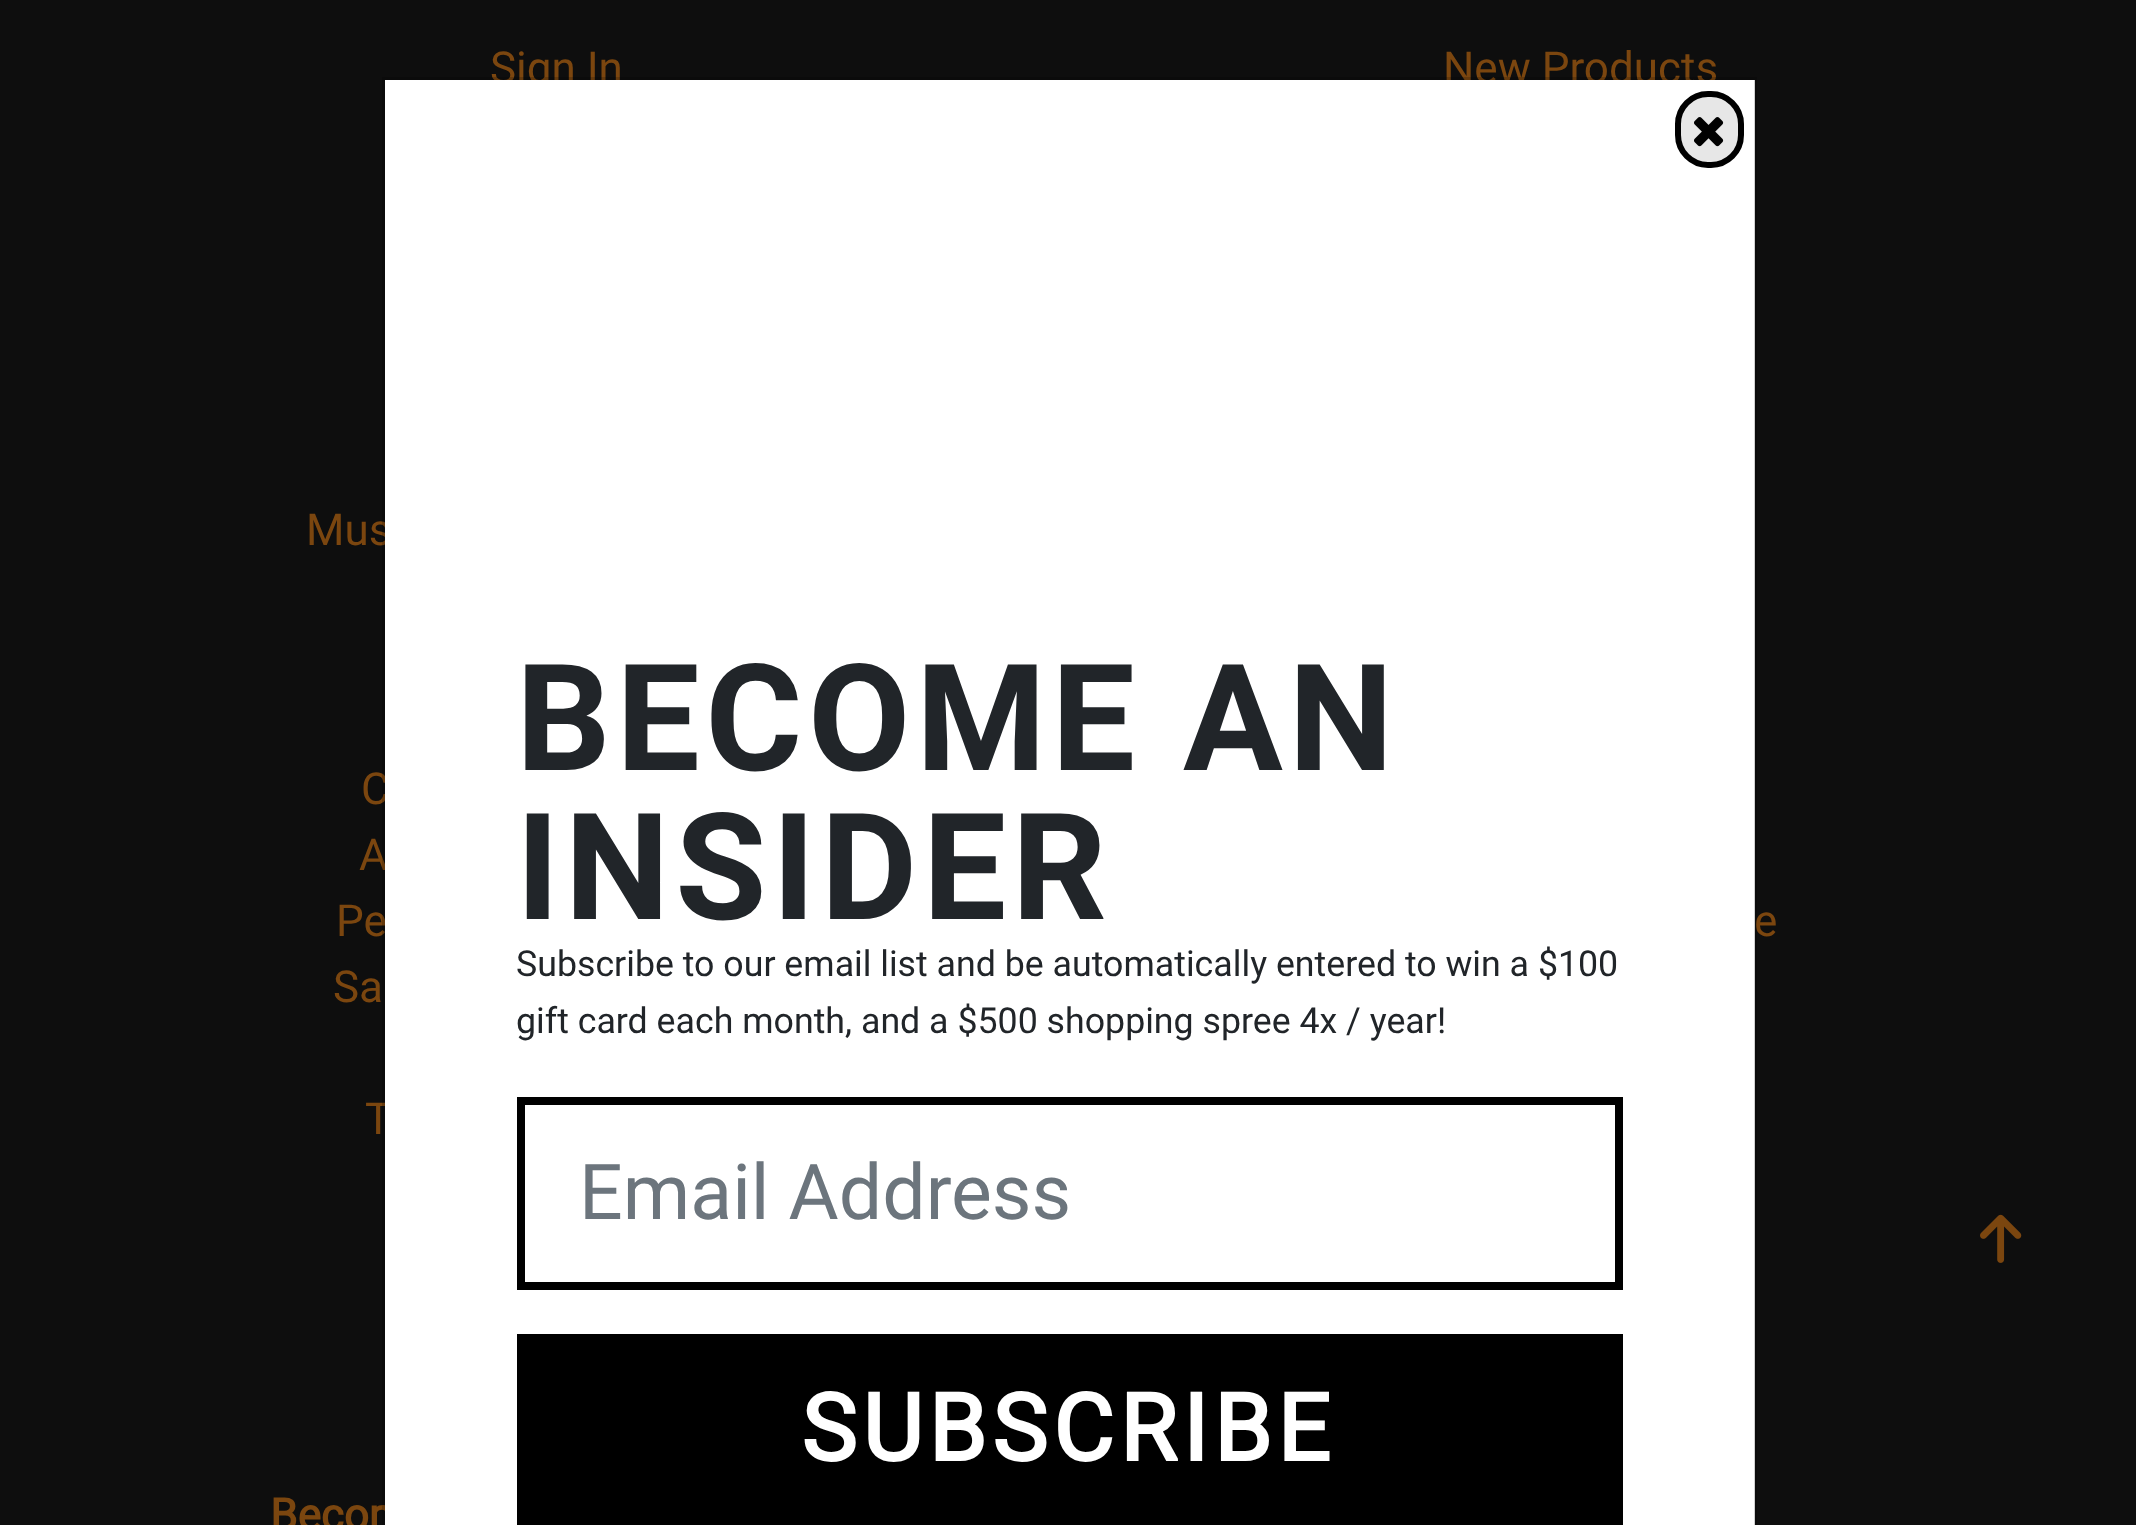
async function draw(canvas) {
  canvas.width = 2136;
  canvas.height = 1525;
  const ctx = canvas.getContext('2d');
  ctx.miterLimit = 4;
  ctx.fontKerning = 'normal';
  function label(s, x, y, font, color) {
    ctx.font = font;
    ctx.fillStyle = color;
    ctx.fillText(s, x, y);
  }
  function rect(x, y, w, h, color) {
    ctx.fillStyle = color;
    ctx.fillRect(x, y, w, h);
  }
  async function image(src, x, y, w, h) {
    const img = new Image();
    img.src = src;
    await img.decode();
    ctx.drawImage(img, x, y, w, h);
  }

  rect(0, 0, 2136, 1525, '#0e0e0e');
  label('Sign In', 490, 83, '44px Roboto', '#7b460f');
  label('Mus', 306, 545, '44px Roboto', '#7b460f');
  label('New Products', 1443, 83, '44px Roboto', '#7b460f');
  label('C', 361, 804, '44px Roboto', '#7b460f');
  label('A', 359, 870, '44px Roboto', '#7b460f');
  label('Pe', 336, 936, '44px Roboto', '#7b460f');
  label('Sa', 333, 1002, '44px Roboto', '#7b460f');
  label('T', 365, 1134, '44px Roboto', '#7b460f');
  label('e', 1754, 936, '44px Roboto', '#7b460f');
  label('Becom', 270, 1530, 'bold 44px Roboto', '#7b460f');
  rect(385, 80, 1370, 1445, '#fff');
  ctx.strokeStyle = '#0000002e';
  ctx.lineWidth = 3;
  ctx.strokeRect(383.5, 78.5, 1372, 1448);
  ctx.fillStyle = '#e7e7e7';
  ctx.beginPath();
  ctx.roundRect(1678, 94, 63, 71, 30);
  ctx.fill();
  ctx.strokeStyle = '#000';
  ctx.lineWidth = 6;
  ctx.stroke();
  await image('assets/img1.png', 1694, 117, 30, 30);
  ctx.letterSpacing = '5.5px';
  label('BECOME AN', 516, 770, 'bold 148.5px "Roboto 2"', '#212529');
  label('INSIDER', 516, 919, 'bold 148.5px "Roboto 2"', '#212529');
  ctx.letterSpacing = '0px';
  label('Subscribe to our email list and be automatically entered to win a $100', 516, 976, '35.75px Roboto', '#212529');
  label('gift card each month, and a $500 shopping spree 4x / year!', 516, 1033, '35.75px Roboto', '#212529');
  ctx.lineWidth = 8;
  ctx.strokeRect(521, 1101, 1098, 185);
  label('Email Address', 579, 1219, '77px Roboto', '#6c757d');
  rect(517, 1334, 1106, 191, '#000');
  ctx.letterSpacing = '5.5px';
  label('SUBSCRIBE', 801, 1461, 'bold 93.5px Roboto', '#fff');
  await image('assets/img2.png', 1980, 1214, 42, 49);
}

draw(document.querySelector('canvas'));
